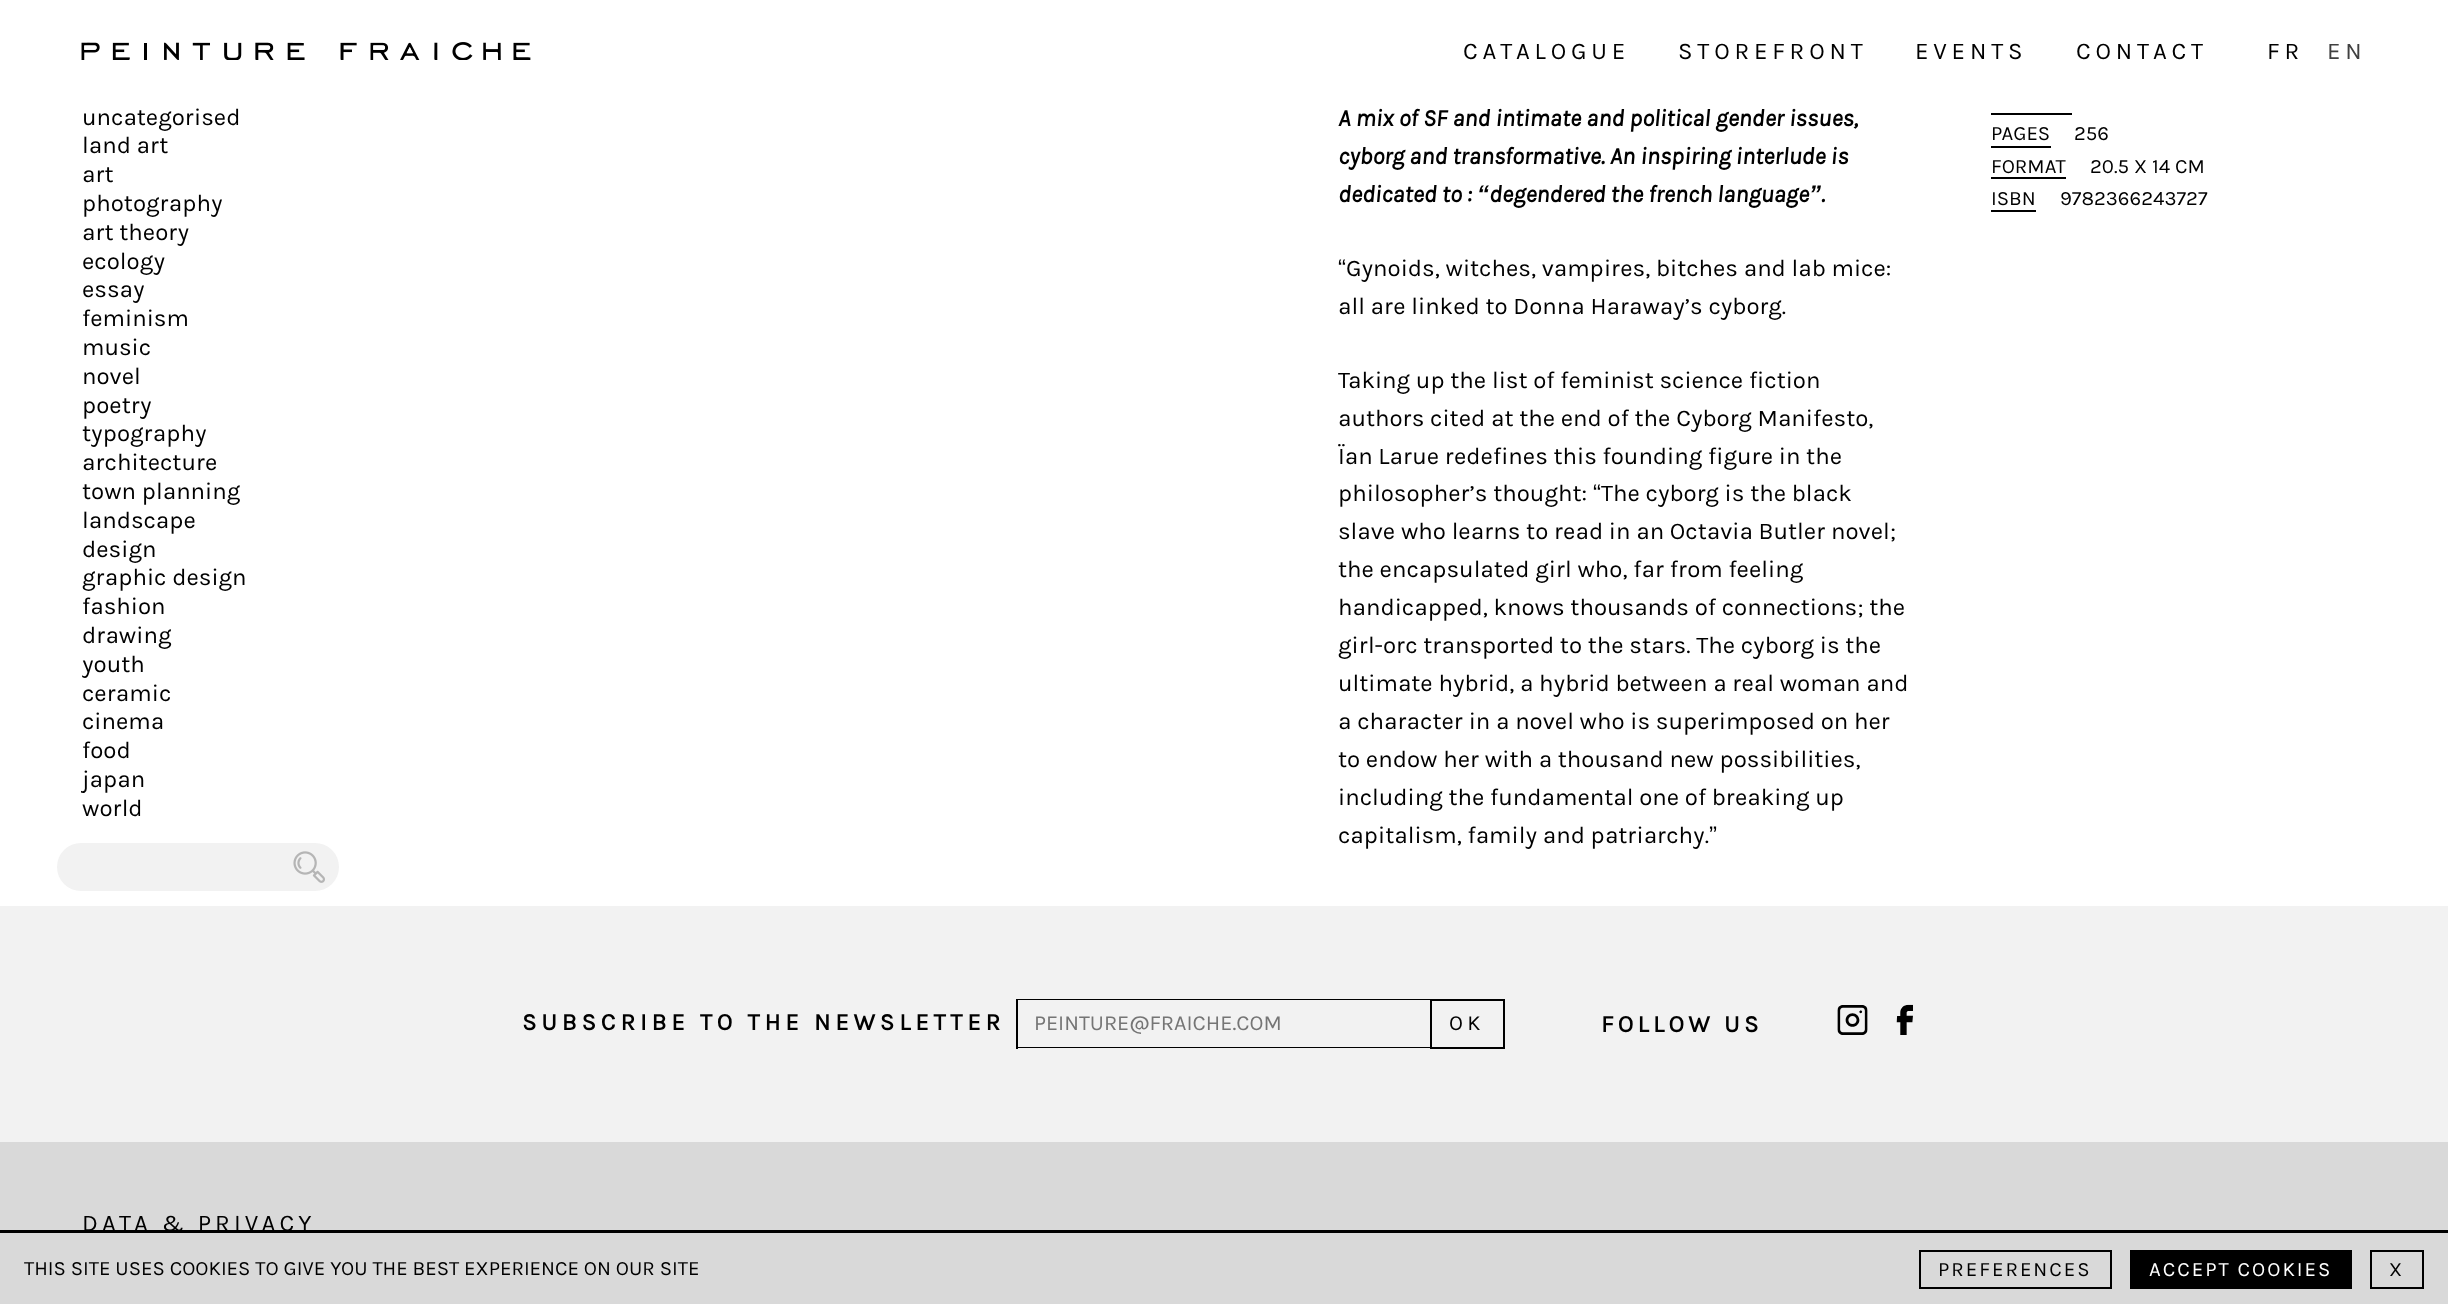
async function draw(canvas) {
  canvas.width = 2448;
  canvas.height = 1304;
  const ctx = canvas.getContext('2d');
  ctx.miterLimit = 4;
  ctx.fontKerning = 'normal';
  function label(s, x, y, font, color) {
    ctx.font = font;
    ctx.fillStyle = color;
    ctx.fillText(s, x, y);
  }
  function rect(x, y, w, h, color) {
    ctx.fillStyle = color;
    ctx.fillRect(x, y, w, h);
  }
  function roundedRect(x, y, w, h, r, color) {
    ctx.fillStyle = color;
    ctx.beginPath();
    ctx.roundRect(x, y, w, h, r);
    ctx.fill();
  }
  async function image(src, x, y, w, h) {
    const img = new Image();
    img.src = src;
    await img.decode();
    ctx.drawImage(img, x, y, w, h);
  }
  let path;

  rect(0, 0, 2448, 1304, '#fff');
  await image('assets/img1.png', 81, 42, 450, 18);
  ctx.letterSpacing = '4.8px';
  label('CATALOGUE', 1463, 59, '24px Karla', '#000');
  label('STOREFRONT', 1678, 59, '24px Karla', '#000');
  label('EVENTS', 1915, 59, '24px Karla', '#000');
  label('CONTACT', 2076, 59, '24px Karla', '#000');
  label('FR', 2267, 59, '24px Karla', '#000');
  label('EN', 2327, 59, '24px Karla', '#404040');
  ctx.letterSpacing = '0px';
  label('uncategorised', 82, 125, '24px Karla', '#000');
  label('land art', 82, 153, '24px Karla', '#000');
  label('art', 82, 182, '24px Karla', '#000');
  label('photography', 82, 211, '24px Karla', '#000');
  label('art theory', 82, 240, '24px Karla', '#000');
  label('ecology', 82, 269, '24px Karla', '#000');
  label('essay', 82, 297, '24px Karla', '#000');
  label('feminism', 82, 326, '24px Karla', '#000');
  label('music', 82, 355, '24px Karla', '#000');
  label('novel', 82, 384, '24px Karla', '#000');
  label('poetry', 82, 413, '24px Karla', '#000');
  label('typography', 82, 441, '24px Karla', '#000');
  label('architecture', 82, 470, '24px Karla', '#000');
  label('town planning', 82, 499, '24px Karla', '#000');
  label('landscape', 82, 528, '24px Karla', '#000');
  label('design', 82, 557, '24px Karla', '#000');
  label('graphic design', 82, 585, '24px Karla', '#000');
  label('fashion', 82, 614, '24px Karla', '#000');
  label('drawing', 82, 643, '24px Karla', '#000');
  label('youth', 82, 672, '24px Karla', '#000');
  label('ceramic', 82, 701, '24px Karla', '#000');
  label('cinema', 82, 729, '24px Karla', '#000');
  label('food', 82, 758, '24px Karla', '#000');
  ctx.save();
  ctx.beginPath();
  ctx.rect(81, 102, 246, 717);
  ctx.clip();
  label('japan', 82, 787, '24px Karla', '#000');
  ctx.restore();
  label('world', 82, 816, '24px Karla', '#000');
  roundedRect(57, 843, 282, 48, 24, '#f2f2f2');
  await image('assets/img2.png', 293, 851, 32, 32);
  label('A mix of SF and intimate and political gender issues,', 1338, 126, 'italic bold 24px Karla', '#000');
  label('cyborg and transformative. An inspiring interlude is', 1338, 164, 'italic bold 24px Karla', '#000');
  label('dedicated to :', 1338, 202, 'italic bold 24px Karla', '#000');
  label('“', 1477, 202, 'italic bold 24px Liberation Sans', '#000');
  label('degendered the french language', 1489, 202, 'italic bold 24px Karla', '#000');
  label('”', 1809, 202, 'italic bold 24px Liberation Sans', '#000');
  label('.', 1821, 202, 'italic bold 24px Karla', '#000');
  label('“', 1338, 276, '24px Liberation Sans', '#000');
  label('Gynoids, witches, vampires, bitches and lab mice:', 1346, 276, '24px Karla', '#000');
  label('all are linked to Donna Haraway’s cyborg.', 1338, 314, '24px Karla', '#000');
  label('Taking up the list of feminist science fiction', 1338, 388, '24px Karla', '#000');
  label('authors cited at the end of the Cyborg Manifesto,', 1338, 426, '24px Karla', '#000');
  label('Ïan Larue redefines this founding figure in the', 1338, 464, '24px Karla', '#000');
  label('philosopher’s thought:', 1338, 501, '24px Karla', '#000');
  label('“', 1593, 501, '24px Liberation Sans', '#000');
  label('The cyborg is the black', 1601, 501, '24px Karla', '#000');
  label('slave who learns to read in an Octavia Butler novel;', 1338, 539, '24px Karla', '#000');
  label('the encapsulated girl who, far from feeling', 1338, 577, '24px Karla', '#000');
  label('handicapped, knows thousands of connections; the', 1338, 615, '24px Karla', '#000');
  label('girl-orc transported to the stars. The cyborg is the', 1338, 653, '24px Karla', '#000');
  label('ultimate hybrid, a hybrid between a real woman and', 1338, 691, '24px Karla', '#000');
  label('a character in a novel who is superimposed on her', 1338, 729, '24px Karla', '#000');
  label('to endow her with a thousand new possibilities,', 1338, 767, '24px Karla', '#000');
  label('including the fundamental one of breaking up', 1338, 805, '24px Karla', '#000');
  label('capitalism, family and patriarchy.', 1338, 843, '24px Karla', '#000');
  label('”', 1709, 843, '24px Liberation Sans', '#000');
  rect(1991, 113, 81, 2, '#000');
  label('PAGES', 1991, 140, '20.4px Karla', '#000');
  rect(1991, 146, 60, 2, '#000');
  label('256', 2074, 140, '20.4px Karla', '#000');
  label('FORMAT', 1991, 173, '20.4px Karla', '#000');
  rect(1991, 177, 75, 2, '#000');
  label('20.5 X 14 CM', 2090, 173, '20.4px Karla', '#000');
  label('ISBN', 1991, 205, '20.4px Karla', '#000');
  rect(1991, 210, 45, 2, '#000');
  label('9782366243727', 2060, 205, '20.4px Karla', '#000');
  rect(0, 906, 2448, 236, '#f2f2f2');
  ctx.letterSpacing = '4.8px';
  label('SUBSCRIBE TO THE NEWSLETTER', 522, 1030, 'bold 24px Karla', '#000');
  path = new Path2D('M1016 999H1504L1503 1000H1017Z');
  ctx.fill(path);
  path = new Path2D('M1504 1048H1016L1017 1047H1503Z');
  ctx.fill(path);
  rect(1016, 999, 2, 50, '#000');
  ctx.letterSpacing = '0px';
  label('PEINTURE@FRAICHE.COM', 1034, 1030, '21.6px Karla', '#757575');
  ctx.strokeStyle = '#000';
  ctx.lineWidth = 2;
  ctx.strokeRect(1431, 1000, 73, 48);
  ctx.letterSpacing = '4.25px';
  label('OK', 1449, 1030, '21.6px Karla', '#000');
  label('FOLLOW US', 1601, 1032, 'bold 24px Karla', '#000');
  await image('assets/img3.png', 1837, 1005, 31, 30);
  await image('assets/img4.png', 1896, 1004, 17, 31);
  rect(0, 1142, 2448, 88, '#d9d9d9');
  ctx.letterSpacing = '4.1px';
  label('DATA & PRIVACY', 82, 1231, '24px Karla', '#000');
  rect(0, 1233, 2448, 71, '#d9d9d9');
  rect(0, 1230, 2448, 3, '#000');
  ctx.letterSpacing = '0px';
  label('THIS SITE USES COOKIES TO GIVE YOU THE BEST EXPERIENCE ON OUR SITE', 24, 1275, '20.4px Karla', '#000');
  ctx.strokeRect(1920, 1251, 191, 37);
  ctx.letterSpacing = '2px';
  label('PREFERENCES', 1938, 1276, '20.4px Karla', '#000');
  rect(2130, 1250, 222, 39, '#000');
  label('ACCEPT COOKIES', 2149, 1276, '20.4px Karla', '#fff');
  ctx.strokeRect(2371, 1251, 52, 37);
  label('X', 2389, 1276, '20.4px Karla', '#000');
}

draw(document.querySelector('canvas'));
